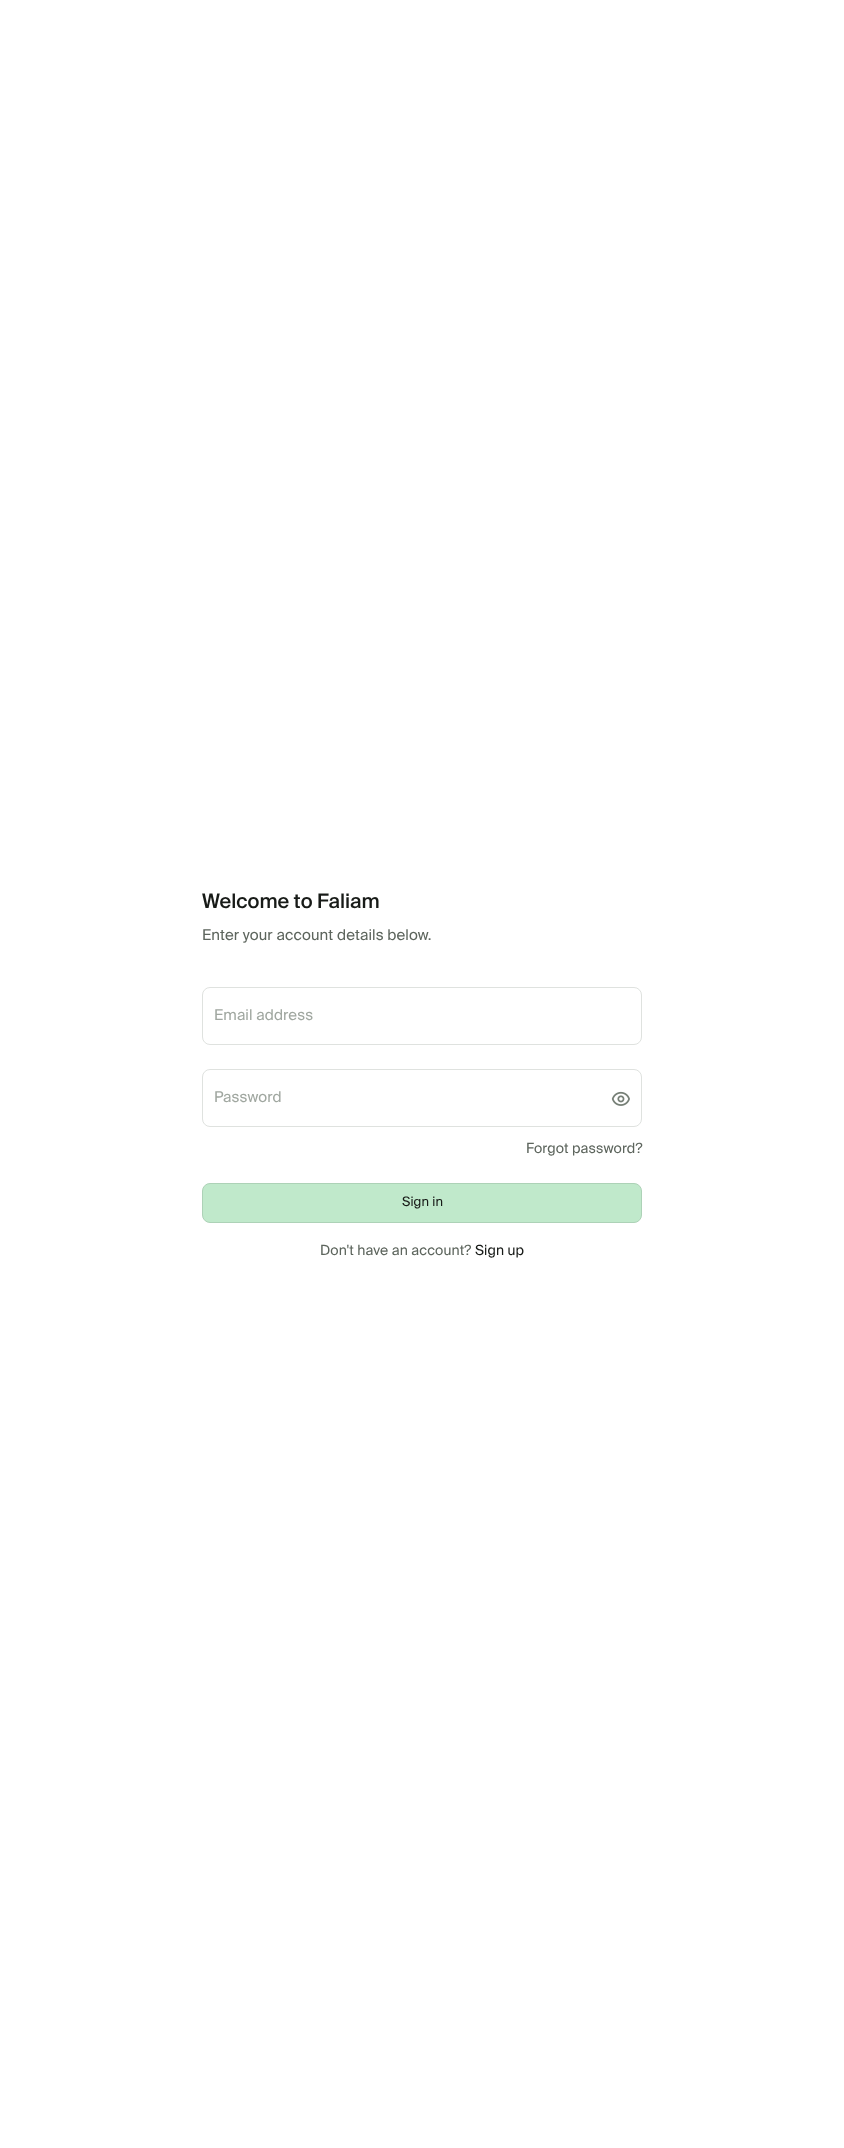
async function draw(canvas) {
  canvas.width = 844;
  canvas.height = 2148;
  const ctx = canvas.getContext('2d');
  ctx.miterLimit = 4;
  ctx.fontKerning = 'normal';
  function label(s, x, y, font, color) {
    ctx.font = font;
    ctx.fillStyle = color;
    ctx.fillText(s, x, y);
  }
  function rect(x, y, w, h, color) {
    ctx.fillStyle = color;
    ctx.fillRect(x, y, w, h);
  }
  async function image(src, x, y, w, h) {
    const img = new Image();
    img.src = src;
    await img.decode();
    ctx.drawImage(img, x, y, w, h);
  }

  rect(0, 0, 844, 2148, '#fff');
  label('Welcome to Faliam', 202, 908, '500 20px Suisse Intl', '#181b18');
  ctx.letterSpacing = '0.1px';
  label('Enter your account details below.', 202, 940, '15px Suisse Intl', '#5d655d');
  ctx.beginPath();
  ctx.roundRect(202.5, 987.5, 439, 57, 7.5);
  ctx.strokeStyle = '#dfe2df';
  ctx.stroke();
  label('Email address', 214, 1020, '15px Suisse Intl', '#a0a7a0');
  ctx.beginPath();
  ctx.roundRect(202.5, 1069.5, 439, 57, 7.5);
  ctx.stroke();
  label('Password', 214, 1102, '15px Suisse Intl', '#a0a7a0');
  await image('assets/img1.png', 611, 1091, 19, 15);
  label('Forgot password?', 526, 1153, '14px Suisse Intl', '#5d655d');
  ctx.fillStyle = '#c0e9cb';
  ctx.beginPath();
  ctx.roundRect(202.5, 1183.5, 439, 39, 7.5);
  ctx.fill();
  ctx.strokeStyle = '#add2b7';
  ctx.stroke();
  label('Sign in', 402, 1206, '13px Suisse Intl', '#181b18');
  label('Don\'t have an account?', 320, 1255, '14px Suisse Intl', '#5d655d');
  label('Sign up', 475, 1255, '14px Suisse Intl', '#181b18');
}

draw(document.querySelector('canvas'));
